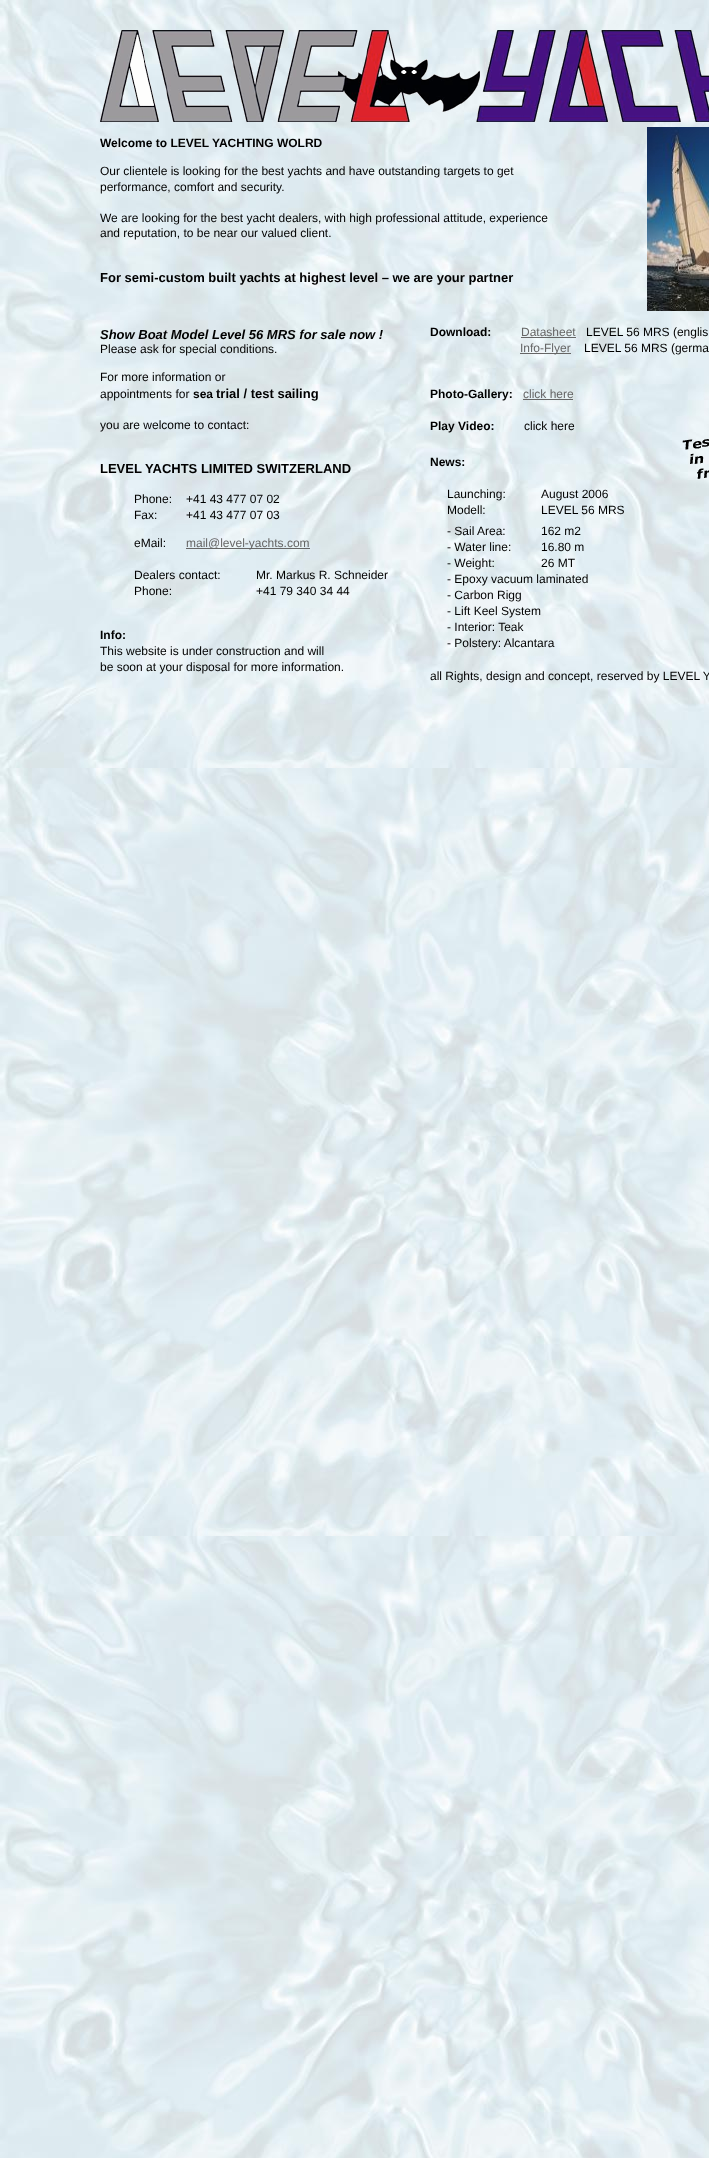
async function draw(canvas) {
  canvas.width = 709;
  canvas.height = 2158;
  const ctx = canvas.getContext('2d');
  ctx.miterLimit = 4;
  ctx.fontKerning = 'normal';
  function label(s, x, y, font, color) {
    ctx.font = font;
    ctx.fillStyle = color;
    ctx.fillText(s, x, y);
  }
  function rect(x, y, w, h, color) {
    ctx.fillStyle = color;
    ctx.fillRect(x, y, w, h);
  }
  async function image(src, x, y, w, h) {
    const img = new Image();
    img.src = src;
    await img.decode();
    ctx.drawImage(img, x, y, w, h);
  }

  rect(0, 0, 709, 2158, '#fff');
  await image('assets/img1.png', 0, 0, 709, 2158);
  await image('assets/img2.png', 100, 30, 609, 92);
  label('Welcome to LEVEL YACHTING WOLRD', 100, 147, 'bold 12px Liberation Sans', '#000');
  label('Our clientele is looking for the best yachts and have outstanding targets to get', 100, 175, '12px Liberation Sans', '#000');
  label('performance, comfort and security.', 100, 191, '12px Liberation Sans', '#000');
  label('We are looking for the best yacht dealers, with high professional attitude, experience', 100, 222, '12px Liberation Sans', '#000');
  label('and reputation, to be near our valued client.', 100, 237, '12px Liberation Sans', '#000');
  label('For semi-custom built yachts at highest level – we are your partner', 100, 282, 'bold 13px Liberation Sans', '#000');
  label('Show Boat Model Level 56 MRS for sale now !', 100, 339, 'italic bold 13px Liberation Sans', '#000');
  label('Please ask for special conditions.', 100, 353, '12px Liberation Sans', '#000');
  label('For more information or', 100, 381, '12px Liberation Sans', '#000');
  label('appointments for', 100, 398, '12px Liberation Sans', '#000');
  label('sea', 193, 398, 'bold 12px Liberation Sans', '#000');
  label('trial / test sailing', 216, 398, 'bold 13px Liberation Sans', '#000');
  label('you are welcome to contact:', 100, 429, '12px Liberation Sans', '#000');
  label('LEVEL YACHTS LIMITED SWITZERLAND', 100, 473, 'bold 13px Liberation Sans', '#000');
  label('Phone:', 134, 503, '12px Liberation Sans', '#000');
  label('+41 43 477 07 02', 186, 503, '12px Liberation Sans', '#000');
  label('Fax:', 134, 519, '12px Liberation Sans', '#000');
  label('+41 43 477 07 03', 186, 519, '12px Liberation Sans', '#000');
  label('eMail:', 134, 547, '12px Liberation Sans', '#000');
  rect(186, 548, 124, 1, '#666');
  label('mail@level-yachts.com', 186, 547, '12px Liberation Sans', '#666');
  label('Dealers contact:', 134, 579, '12px Liberation Sans', '#000');
  label('Mr. Markus R. Schneider', 256, 579, '12px Liberation Sans', '#000');
  label('Phone:', 134, 595, '12px Liberation Sans', '#000');
  label('+41 79 340 34 44', 256, 595, '12px Liberation Sans', '#000');
  label('Info:', 100, 639, 'bold 12px Liberation Sans', '#000');
  label('This website is under construction and will', 100, 655, '12px Liberation Sans', '#000');
  label('be soon at your disposal for more information.', 100, 671, '12px Liberation Sans', '#000');
  await image('assets/img3.png', 647, 127, 62, 184);
  label('Download:', 430, 336, 'bold 12px Liberation Sans', '#000');
  label('Datasheet', 521, 336, '12px Liberation Sans', '#666');
  rect(521, 337, 55, 1, '#666');
  label('LEVEL 56 MRS (englis', 586, 336, '12px Liberation Sans', '#000');
  rect(520, 353, 51, 1, '#666');
  label('Info-Flyer', 520, 352, '12px Liberation Sans', '#666');
  label('LEVEL 56 MRS (germa', 584, 352, '12px Liberation Sans', '#000');
  label('Photo-Gallery:', 430, 398, 'bold 12px Liberation Sans', '#000');
  label('click here', 523, 398, '12px Liberation Sans', '#666');
  rect(523, 399, 50, 1, '#666');
  label('Play Video:', 430, 430, 'bold 12px Liberation Sans', '#000');
  label('click here', 524, 430, '12px Liberation Sans', '#000');
  label('News:', 430, 466, 'bold 12px Liberation Sans', '#000');
  label('Launching:', 447, 498, '12px Liberation Sans', '#000');
  label('August 2006', 541, 498, '12px Liberation Sans', '#000');
  label('Modell:', 447, 514, '12px Liberation Sans', '#000');
  label('LEVEL 56 MRS', 541, 514, '12px Liberation Sans', '#000');
  label('- Sail Area:', 447, 535, '12px Liberation Sans', '#000');
  label('162 m2', 541, 535, '12px Liberation Sans', '#000');
  label('- Water line:', 447, 551, '12px Liberation Sans', '#000');
  label('16.80 m', 541, 551, '12px Liberation Sans', '#000');
  label('- Weight:', 447, 567, '12px Liberation Sans', '#000');
  label('26 MT', 541, 567, '12px Liberation Sans', '#000');
  label('- Epoxy vacuum laminated', 447, 583, '12px Liberation Sans', '#000');
  label('- Carbon Rigg', 447, 599, '12px Liberation Sans', '#000');
  label('- Lift Keel System', 447, 615, '12px Liberation Sans', '#000');
  label('- Interior: Teak', 447, 631, '12px Liberation Sans', '#000');
  label('- Polstery: Alcantara', 447, 647, '12px Liberation Sans', '#000');
  await image('assets/img4.png', 682, 439, 27, 40);
  label('all Rights, design and concept, reserved by LEVEL Y', 430, 680, '12px Liberation Sans', '#000');
}

draw(document.querySelector('canvas'));
